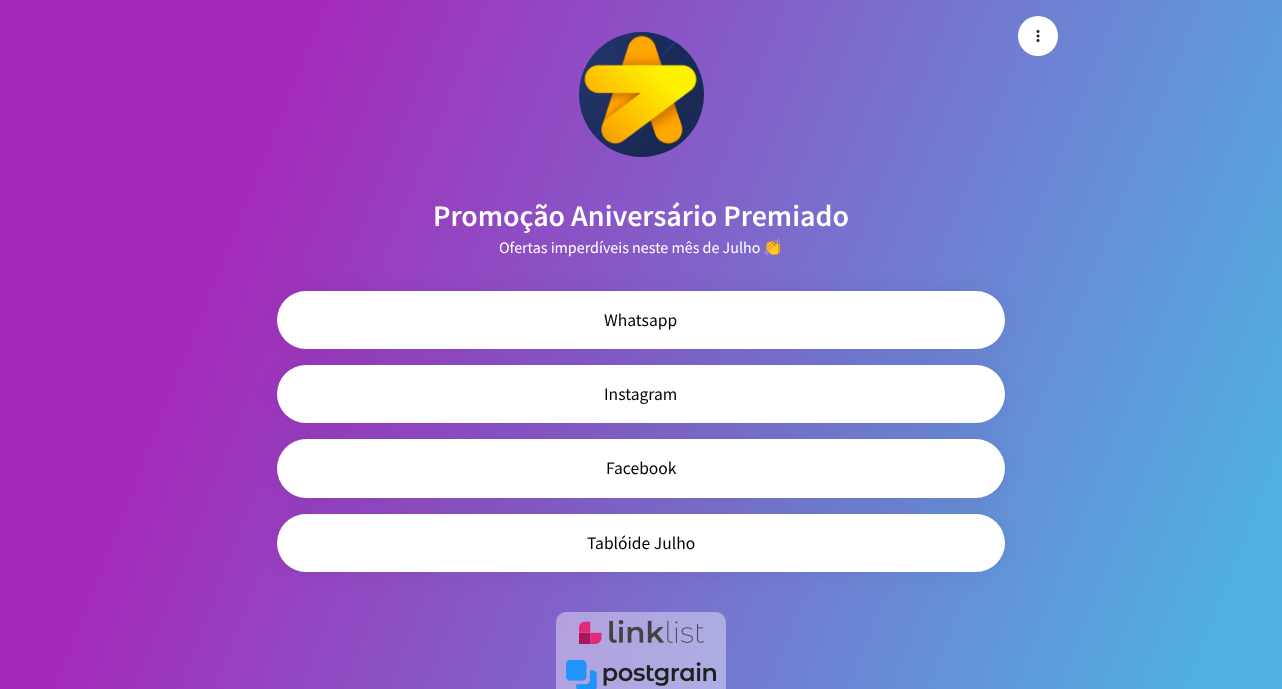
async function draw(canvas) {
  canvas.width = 1282;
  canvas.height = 689;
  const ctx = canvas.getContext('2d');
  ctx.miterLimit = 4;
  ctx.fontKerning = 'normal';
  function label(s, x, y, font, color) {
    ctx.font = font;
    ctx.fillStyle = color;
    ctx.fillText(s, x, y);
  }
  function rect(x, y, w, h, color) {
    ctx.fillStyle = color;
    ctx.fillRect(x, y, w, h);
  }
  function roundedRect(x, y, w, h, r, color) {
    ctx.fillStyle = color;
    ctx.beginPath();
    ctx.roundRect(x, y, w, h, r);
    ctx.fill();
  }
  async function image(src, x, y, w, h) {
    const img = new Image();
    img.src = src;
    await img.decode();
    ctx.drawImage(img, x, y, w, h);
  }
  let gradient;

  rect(0, 0, 1282, 689, '#fff');
  gradient = ctx.createLinearGradient(-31, 77, 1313, 612);
  gradient.addColorStop(0.2, '#a529b9');
  gradient.addColorStop(0.95, '#50b1e1');
  ctx.fillStyle = gradient;
  ctx.fillRect(0, 0, 1282, 689);
  ctx.fillStyle = '#fff';
  ctx.beginPath();
  ctx.arc(1038, 36, 20, 0, 2 * Math.PI);
  ctx.fill();
  await image('assets/img1.png', 1036, 30, 4, 12);
  await image('assets/img2.png', 579, 32, 125, 125);
  label('Promoção Aniversário Premiado', 433, 226, '600 30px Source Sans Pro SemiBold', '#fff');
  label('Ofertas imperdíveis neste mês de Julho', 499, 253, '16px Source Sans Pro', '#fff');
  label('👏', 763, 253, '16px Noto Color Emoji', '#fff');
  ctx.fillStyle = '#0000000f';
  ctx.filter = 'blur(10px)';
  ctx.beginPath();
  ctx.roundRect(277, 291, 728, 58, 29);
  ctx.fill();
  ctx.filter = 'none';
  roundedRect(277, 291, 728, 58, 29, '#fff');
  label('Whatsapp', 604, 326, '17.5px Source Sans Pro', '#000');
  ctx.fillStyle = '#0000000f';
  ctx.filter = 'blur(10px)';
  ctx.beginPath();
  ctx.roundRect(277, 365, 728, 58, 29);
  ctx.fill();
  ctx.filter = 'none';
  roundedRect(277, 365, 728, 58, 29, '#fff');
  label('Instagram', 604, 400, '17.5px Source Sans Pro', '#000');
  ctx.fillStyle = '#0000000f';
  ctx.filter = 'blur(10px)';
  ctx.beginPath();
  ctx.roundRect(277, 439, 728, 59, 29.5);
  ctx.fill();
  ctx.filter = 'none';
  roundedRect(277, 439, 728, 59, 29.5, '#fff');
  label('Facebook', 606, 474, '17.5px Source Sans Pro', '#000');
  ctx.fillStyle = '#0000000f';
  ctx.filter = 'blur(10px)';
  ctx.beginPath();
  ctx.roundRect(277, 514, 728, 58, 29);
  ctx.fill();
  ctx.filter = 'none';
  roundedRect(277, 514, 728, 58, 29, '#fff');
  label('Tablóide Julho', 587, 549, '17.5px Source Sans Pro', '#000');
  ctx.fillStyle = '#ffffff66';
  ctx.beginPath();
  ctx.roundRect(556, 612, 170, 77, [10, 10, 0, 0]);
  ctx.fill();
  await image('assets/img3.png', 579, 620, 125, 24);
  await image('assets/img4.png', 566, 660, 150, 29);
}

draw(document.querySelector('canvas'));
